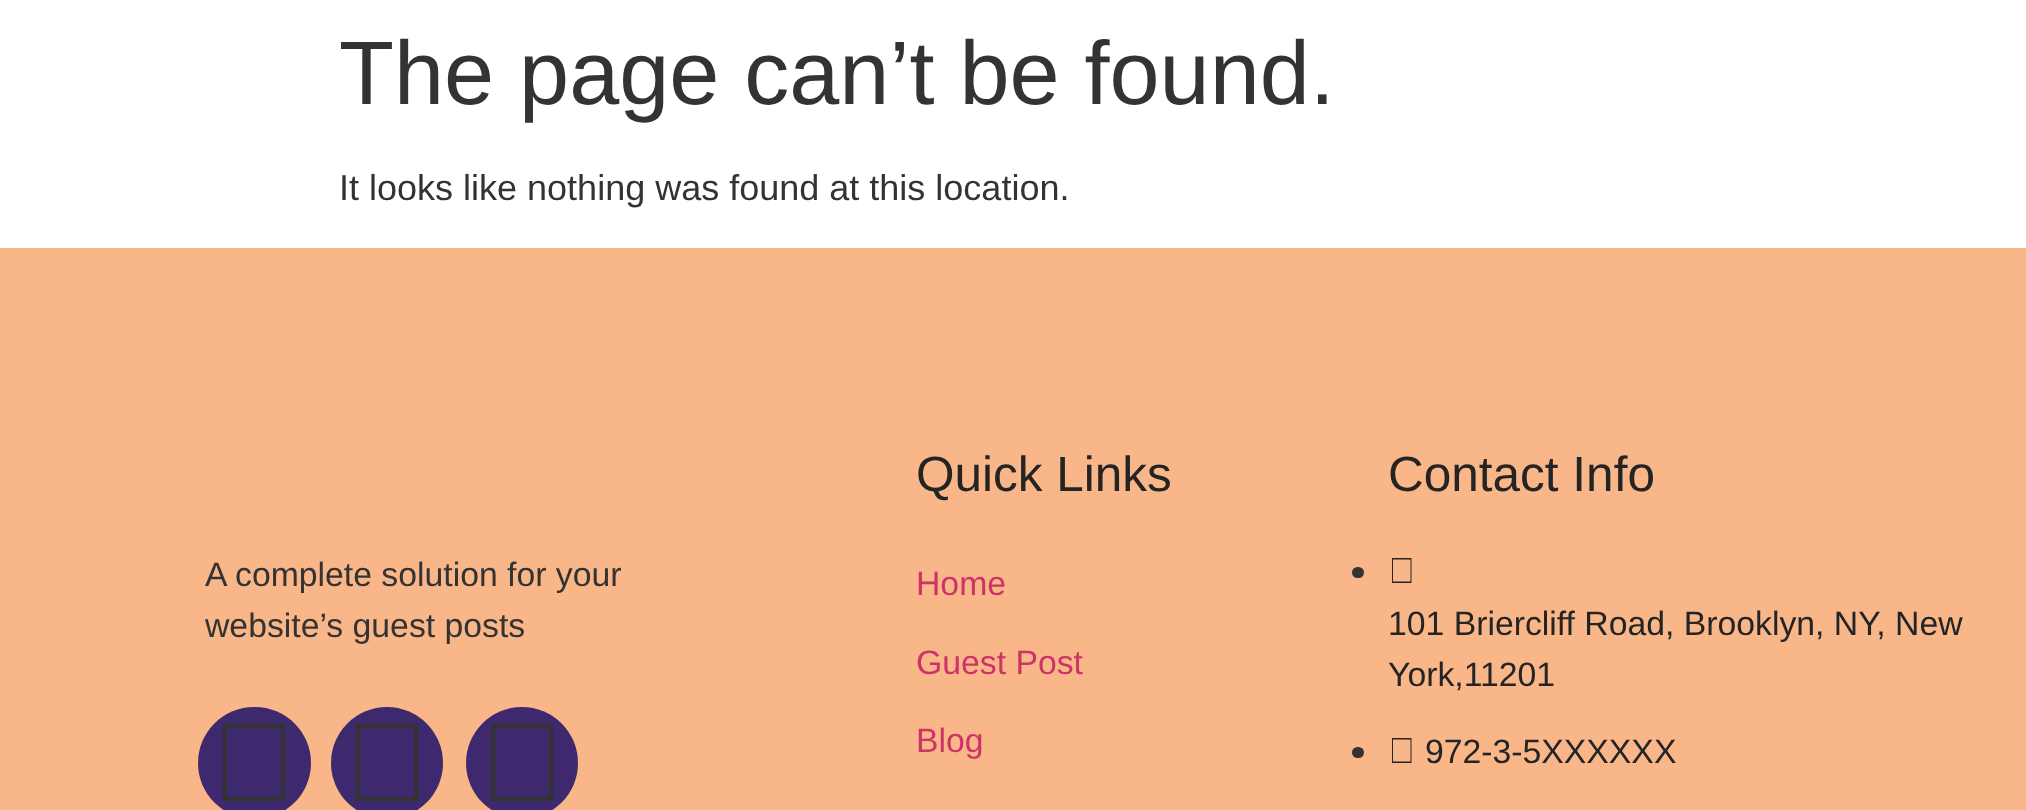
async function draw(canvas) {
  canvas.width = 2026;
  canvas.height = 810;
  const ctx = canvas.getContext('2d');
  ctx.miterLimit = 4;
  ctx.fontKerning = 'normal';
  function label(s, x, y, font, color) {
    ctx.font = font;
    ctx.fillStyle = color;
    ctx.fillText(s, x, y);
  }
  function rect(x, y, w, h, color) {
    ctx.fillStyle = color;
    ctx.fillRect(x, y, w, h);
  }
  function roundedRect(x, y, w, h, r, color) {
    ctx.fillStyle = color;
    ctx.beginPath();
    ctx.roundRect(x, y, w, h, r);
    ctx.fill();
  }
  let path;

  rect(0, 0, 2026, 810, '#fff');
  label('The page can’t be found.', 339, 104, '90px Liberation Sans', '#333');
  label('It looks like nothing was found at this location.', 339, 200, '36px Liberation Sans', '#333');
  rect(0, 248, 2026, 562, '#f9b789');
  label('A complete solution for your', 205, 586, '33.75px Liberation Sans', '#333');
  label('website’s guest posts', 205, 637, '33.75px Liberation Sans', '#333');
  roundedRect(198, 707, 113, 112, 56, '#3e296e');
  ctx.fillStyle = '#333';
  path = new Path2D('M223 724H285V801H223ZM227 728V797H281V728Z');
  ctx.fill(path);
  ctx.fillStyle = '#3e296e';
  ctx.beginPath();
  ctx.arc(387, 763, 56, 0, 2 * Math.PI);
  ctx.fill();
  ctx.fillStyle = '#333';
  path = new Path2D('M356 724H418V801H356ZM360 728V797H414V728Z');
  ctx.fill(path);
  ctx.fillStyle = '#3e296e';
  ctx.beginPath();
  ctx.arc(522, 763, 56, 0, 2 * Math.PI);
  ctx.fill();
  ctx.fillStyle = '#333';
  path = new Path2D('M491 724H553V801H491ZM495 728V797H549V728Z');
  ctx.fill(path);
  label('Quick Links', 916, 491, '49.5px Liberation Sans', '#242424');
  label('Home', 916, 595, '33.75px Liberation Sans', '#c36');
  label('Guest Post', 916, 674, '33.75px Liberation Sans', '#c36');
  label('Blog', 916, 752, '33.75px Liberation Sans', '#c36');
  label('Contact Info', 1388, 491, '49.5px Liberation Sans', '#242424');
  roundedRect(1352, 567, 12, 11, 5.5, '#333');
  ctx.fillStyle = '#242424';
  path = new Path2D('M1392 558H1411.5V583H1392ZM1393 559.5V581.5H1410.5V559.5Z');
  ctx.fill(path);
  label('101 Briercliff Road, Brooklyn, NY, New', 1388, 635, '33.75px Liberation Sans', '#242424');
  label('York,11201', 1388, 686, '33.75px Liberation Sans', '#242424');
  roundedRect(1352, 747, 12, 11, 5.5, '#333');
  ctx.fillStyle = '#242424';
  path = new Path2D('M1392 738H1411.5V763H1392ZM1393 739.5V761.5H1410.5V739.5Z');
  ctx.fill(path);
  label('972-3-5XXXXXX', 1425, 763, '33.75px Liberation Sans', '#242424');
}

draw(document.querySelector('canvas'));
